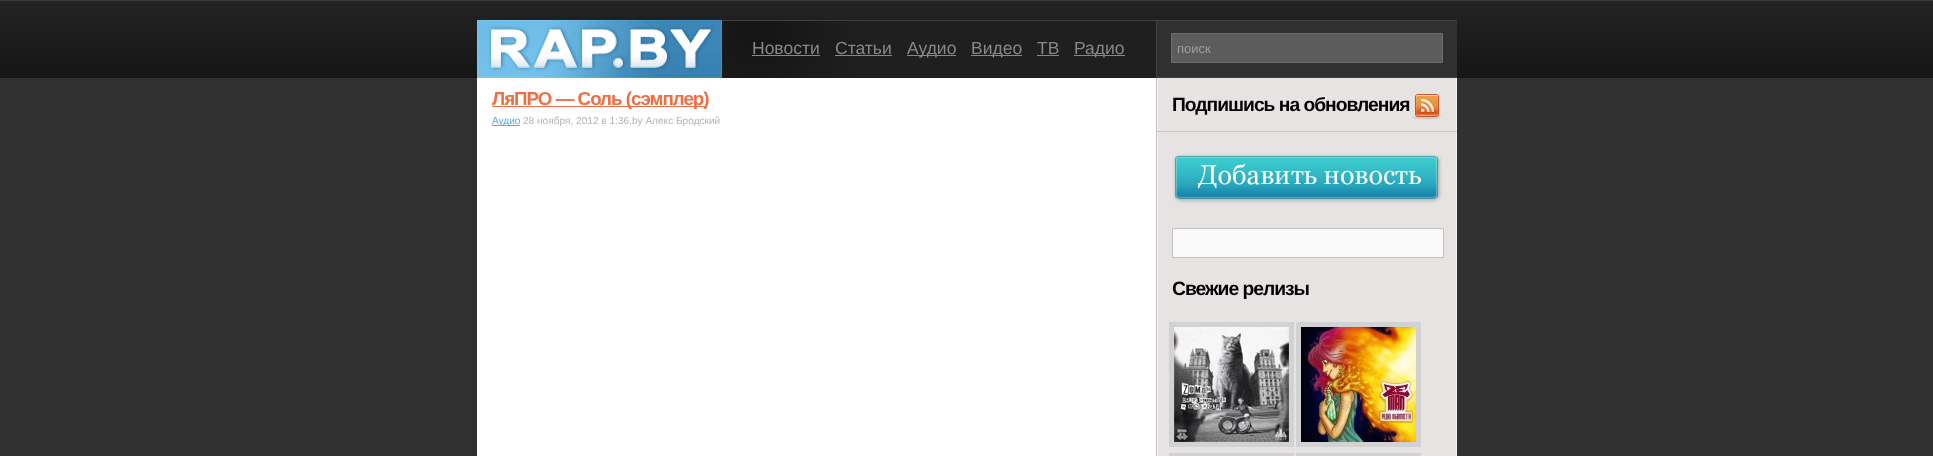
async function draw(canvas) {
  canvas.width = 1933;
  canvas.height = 456;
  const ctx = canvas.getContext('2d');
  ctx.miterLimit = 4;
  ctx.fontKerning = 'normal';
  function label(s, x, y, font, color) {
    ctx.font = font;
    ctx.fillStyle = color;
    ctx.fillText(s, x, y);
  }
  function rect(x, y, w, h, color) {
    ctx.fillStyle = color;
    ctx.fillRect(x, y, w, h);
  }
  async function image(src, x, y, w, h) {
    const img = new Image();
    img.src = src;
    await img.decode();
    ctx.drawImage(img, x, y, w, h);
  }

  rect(0, 0, 1933, 456, '#303030');
  await image('assets/img1.png', 0, 0, 1933, 78);
  await image('assets/img2.png', 477, 20, 245, 58);
  await image('assets/img3.png', 722, 20, 434, 58);
  label('Новости', 752, 54, '17.5px Liberation Sans', '#898787');
  rect(752, 55, 68, 1, '#898787');
  label('Статьи', 835, 54, '17.5px Liberation Sans', '#898787');
  rect(835, 55, 57, 1, '#898787');
  rect(907, 55, 49, 1, '#898787');
  label('Аудио', 907, 54, '17.5px Liberation Sans', '#898787');
  rect(971, 55, 51, 1, '#898787');
  label('Видео', 971, 54, '17.5px Liberation Sans', '#898787');
  label('ТВ', 1037, 54, '17.5px Liberation Sans', '#898787');
  rect(1037, 55, 22, 1, '#898787');
  rect(1074, 55, 51, 1, '#898787');
  label('Радио', 1074, 54, '17.5px Liberation Sans', '#898787');
  rect(1157, 21, 300, 56, '#303030');
  rect(1156, 20, 301, 1, '#404040');
  rect(1156, 77, 301, 1, '#404040');
  rect(1156, 20, 1, 58, '#404040');
  ctx.fillStyle = '#5c5c5c';
  ctx.beginPath();
  ctx.rect(1171.5, 33.5, 271, 29);
  ctx.fill();
  ctx.strokeStyle = '#6d6d6d';
  ctx.stroke();
  label('поиск', 1177, 53, '13px Liberation Sans', '#9e9e9d');
  rect(477, 78, 679, 378, '#fff');
  await image('assets/img4.png', 1156, 78, 301, 378);
  rect(492, 106, 215, 1, '#ef6f45');
  ctx.letterSpacing = '-1px';
  label('ЛяПРО — Соль (сэмплер)', 492, 105, 'bold 18.75px Liberation Sans', '#ef6f45');
  rect(492, 125, 28, 1, '#52adde');
  ctx.letterSpacing = '0px';
  label('Аудио', 492, 124, '10.1px Liberation Sans', '#52adde');
  label('28 ноября, 2012 в 1:36,by Алекс Бродский', 523, 124, '10.1px Liberation Sans', '#b4b3b3');
  await image('assets/img5.png', 1412, 94, 30, 26);
  rect(1157, 131, 300, 1, '#c7c4c3');
  ctx.letterSpacing = '-1px';
  label('Подпишись на обновления', 1172, 111, 'bold 19.25px Liberation Sans', '#000');
  await image('assets/img6.png', 1172, 152, 270, 52);
  ctx.fillStyle = '#f9f9f9';
  ctx.beginPath();
  ctx.rect(1172.5, 228.5, 271, 29);
  ctx.fill();
  ctx.strokeStyle = '#c4c1c0';
  ctx.stroke();
  label('Свежие релизы', 1172, 295, 'bold 19.25px Liberation Sans', '#000');
  rect(1169, 322, 125, 125, '#d2d2d2');
  await image('assets/img7.png', 1174, 327, 115, 115);
  rect(1296, 322, 125, 125, '#d2d2d2');
  await image('assets/img8.png', 1301, 327, 115, 115);
  rect(1169, 453, 125, 3, '#d2d2d2');
  rect(1296, 453, 125, 3, '#d2d2d2');
}

draw(document.querySelector('canvas'));
